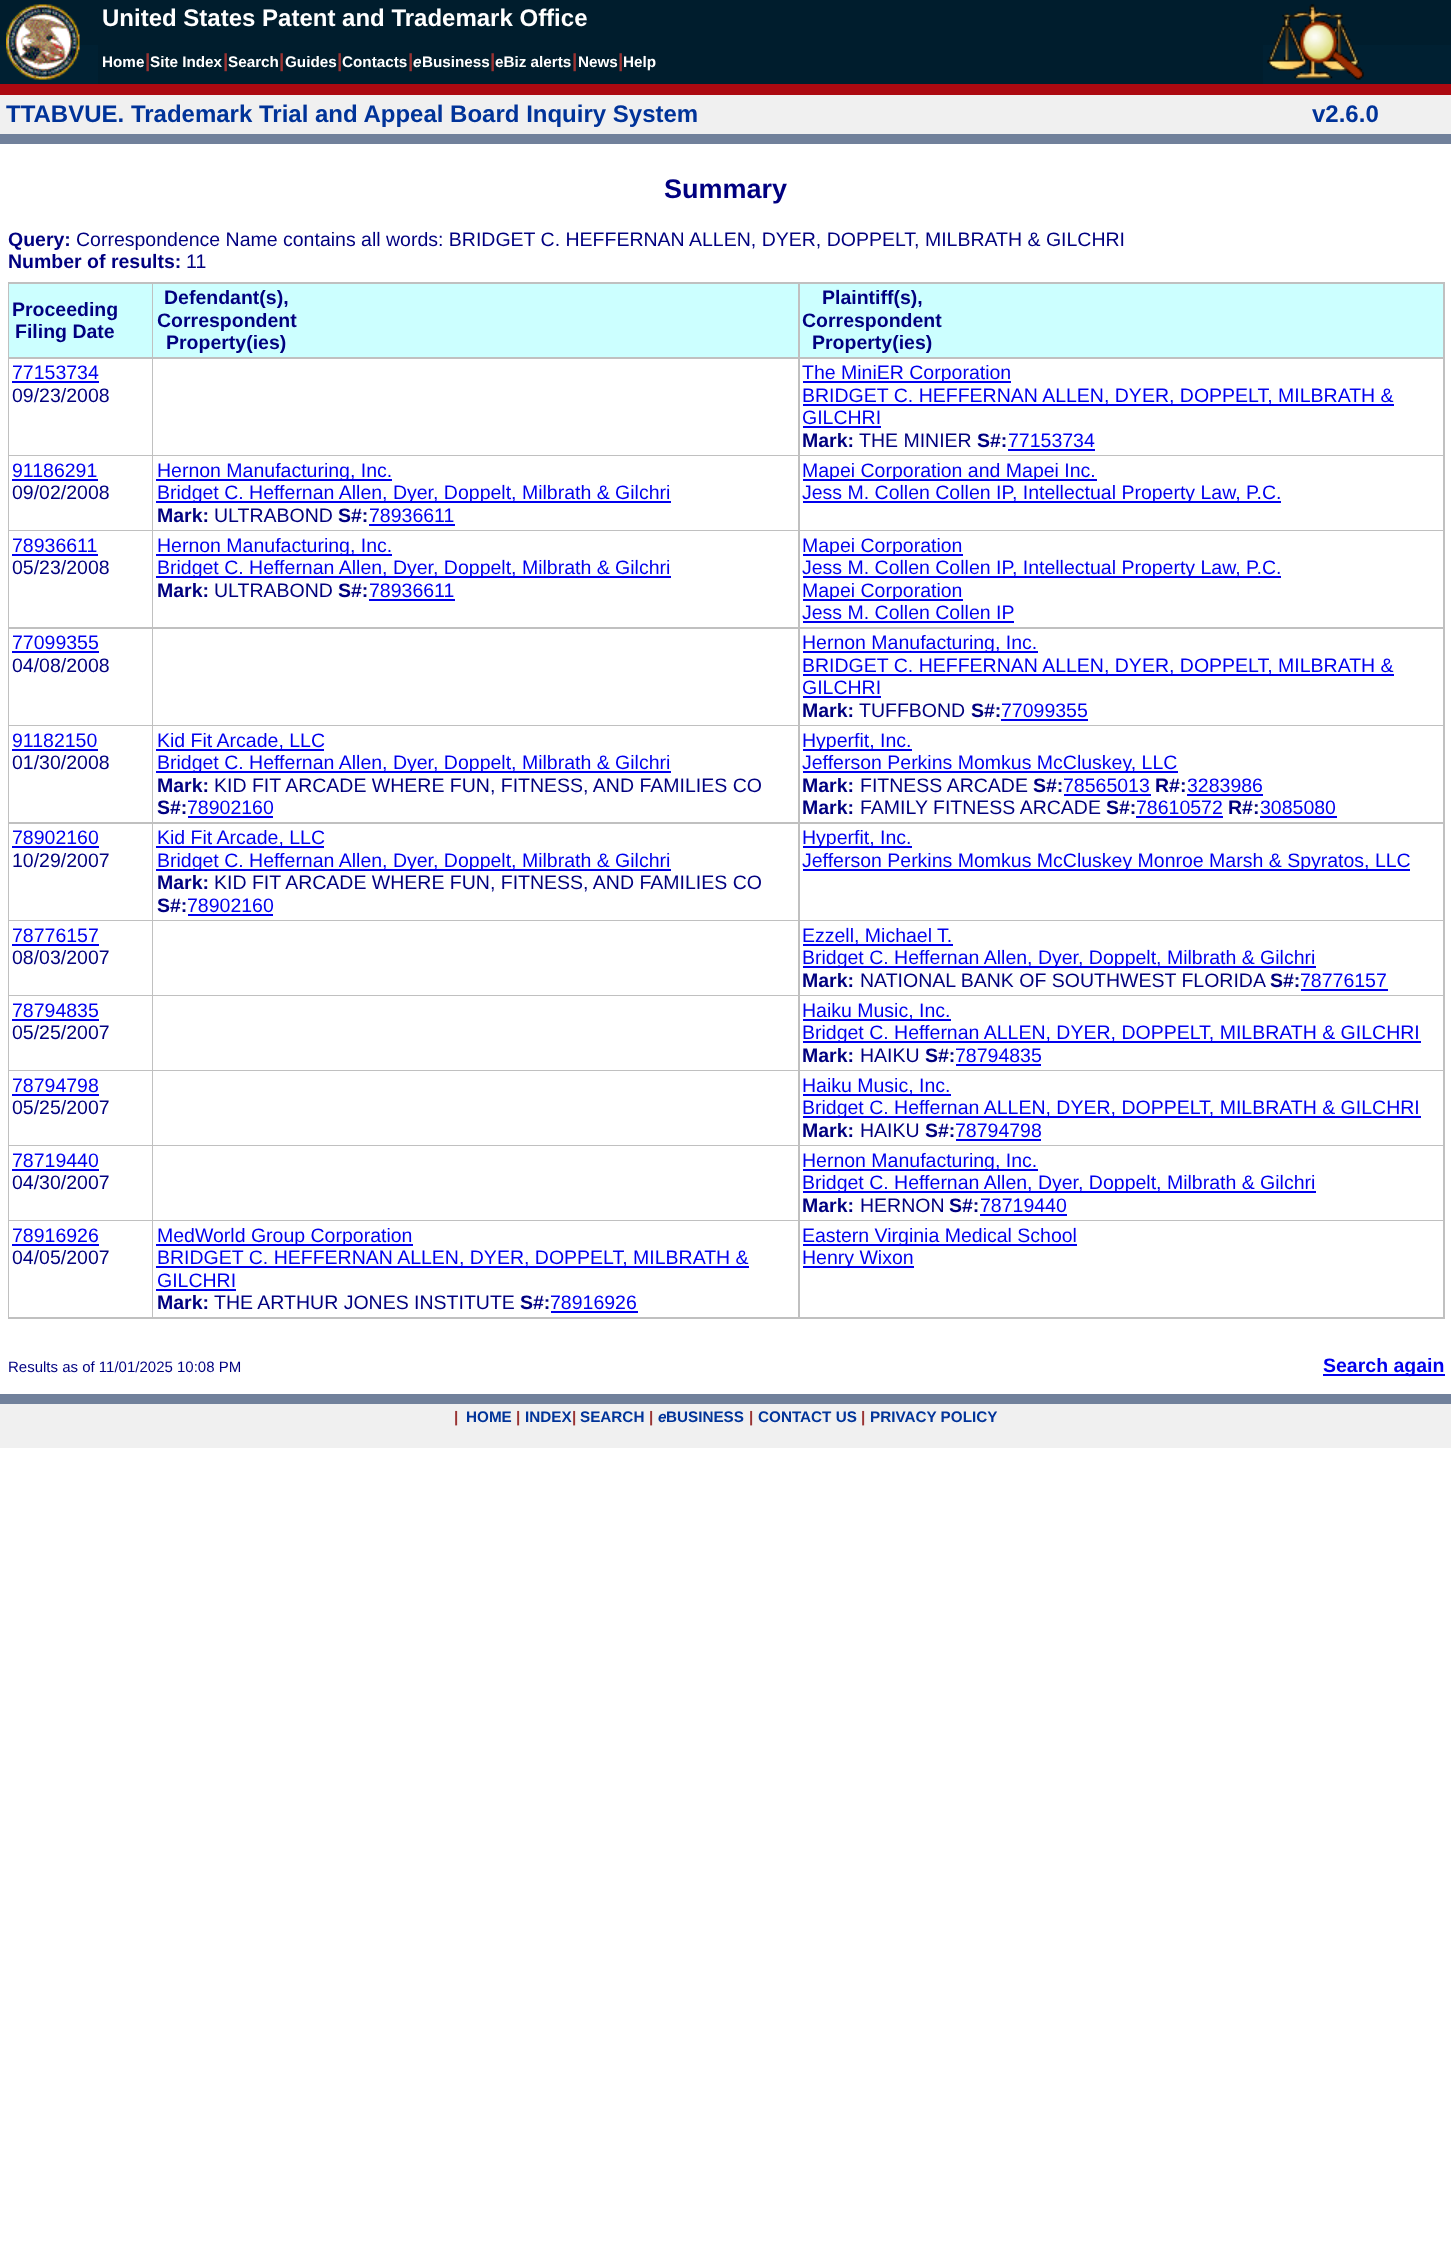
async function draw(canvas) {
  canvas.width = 1451;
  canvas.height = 2265;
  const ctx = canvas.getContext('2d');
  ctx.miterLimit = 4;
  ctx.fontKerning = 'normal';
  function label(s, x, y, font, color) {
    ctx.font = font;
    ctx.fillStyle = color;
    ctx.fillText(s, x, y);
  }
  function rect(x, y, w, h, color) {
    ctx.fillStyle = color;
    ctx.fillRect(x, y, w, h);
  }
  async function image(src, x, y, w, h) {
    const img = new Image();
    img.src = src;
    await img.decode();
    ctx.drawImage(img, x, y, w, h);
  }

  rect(0, 0, 1451, 2265, '#fff');
  rect(0, 0, 1451, 45, '#001d2d');
  rect(0, 45, 1451, 39, '#002032');
  await image('assets/img1.png', 6, 4, 74, 76);
  label('United States Patent and Trademark Office', 102, 26, 'bold 24px Liberation Sans', '#fff');
  await image('assets/img2.png', 1267, 4, 97, 76);
  rect(98, 45, 1165, 39, '#001d2d');
  label('Home', 102, 67, 'bold 15.25px Liberation Sans', '#fff');
  label('|', 145, 67, 'bold 19px Liberation Sans', '#933');
  label('Site Index', 150, 67, 'bold 15.25px Liberation Sans', '#fff');
  label('|', 223, 67, 'bold 19px Liberation Sans', '#933');
  label('Search', 228, 67, 'bold 15.25px Liberation Sans', '#fff');
  label('|', 279, 67, 'bold 19px Liberation Sans', '#933');
  label('Guides', 285, 67, 'bold 15.25px Liberation Sans', '#fff');
  label('|', 337, 67, 'bold 19px Liberation Sans', '#933');
  label('Contacts', 342, 67, 'bold 15.25px Liberation Sans', '#fff');
  label('|', 408, 67, 'bold 19px Liberation Sans', '#933');
  label('e', 413, 67, 'italic bold 15.25px Liberation Sans', '#fff');
  label('Business', 422, 67, 'bold 15.25px Liberation Sans', '#fff');
  label('|', 490, 67, 'bold 19px Liberation Sans', '#933');
  label('eBiz alerts', 495, 67, 'bold 15.25px Liberation Sans', '#fff');
  label('|', 572, 67, 'bold 19px Liberation Sans', '#933');
  label('News', 578, 67, 'bold 15.25px Liberation Sans', '#fff');
  label('|', 618, 67, 'bold 19px Liberation Sans', '#933');
  label('Help', 623, 67, 'bold 15.25px Liberation Sans', '#fff');
  rect(0, 84, 1451, 11, '#ac0911');
  rect(0, 95, 1451, 39, '#f0f0f0');
  label('TTABVUE. Trademark Trial and Appeal Board Inquiry System', 6, 122, 'bold 24px Liberation Sans', '#039');
  label('v2.6.0', 1312, 122, 'bold 24px Liberation Sans', '#039');
  rect(0, 134, 1451, 10, '#71819b');
  label('Summary', 664, 198, 'bold 27px Liberation Sans', '#000080');
  label('Query:', 8, 246, 'bold 19.5px Liberation Sans', '#000080');
  label('Correspondence Name contains all words: BRIDGET C. HEFFERNAN ALLEN, DYER, DOPPELT, MILBRATH & GILCHRI', 76, 246, '19.5px Liberation Sans', '#000080');
  label('Number of results:', 8, 268, 'bold 19.5px Liberation Sans', '#000080');
  label('11', 186, 268, '19.5px Liberation Sans', '#000080');
  rect(8, 282, 1437, 1037, '#c0c0c0');
  rect(9, 284, 143, 73, '#cff');
  label('Proceeding', 12, 316, 'bold 19.5px Liberation Sans', '#000080');
  label('Filing Date', 15, 338, 'bold 19.5px Liberation Sans', '#000080');
  rect(153, 284, 645, 73, '#cff');
  label('Defendant(s),', 164, 304, 'bold 19.5px Liberation Sans', '#000080');
  label('Correspondent', 157, 327, 'bold 19.5px Liberation Sans', '#000080');
  label('Property(ies)', 166, 349, 'bold 19.5px Liberation Sans', '#000080');
  rect(800, 284, 643, 73, '#cff');
  label('Plaintiff(s),', 822, 304, 'bold 19.5px Liberation Sans', '#000080');
  label('Correspondent', 802, 327, 'bold 19.5px Liberation Sans', '#000080');
  label('Property(ies)', 812, 349, 'bold 19.5px Liberation Sans', '#000080');
  rect(9, 359, 143, 96, '#fff');
  label('77153734', 12, 379, '19.5px Liberation Sans', '#00e');
  rect(12, 381, 87, 2, '#00e');
  label('09/23/2008', 12, 402, '19.5px Liberation Sans', '#000080');
  rect(153, 359, 645, 96, '#fff');
  rect(800, 359, 643, 96, '#fff');
  rect(803, 381, 208, 2, '#00e');
  label('The MiniER Corporation', 802, 379, '19.5px Liberation Sans', '#00e');
  rect(803, 404, 591, 2, '#00e');
  label('BRIDGET C. HEFFERNAN ALLEN, DYER, DOPPELT, MILBRATH &', 802, 402, '19.5px Liberation Sans', '#00e');
  label('GILCHRI', 802, 424, '19.5px Liberation Sans', '#00e');
  rect(803, 426, 78, 2, '#00e');
  label('Mark:', 802, 447, 'bold 19.5px Liberation Sans', '#000080');
  label('THE MINIER', 859, 447, '19.5px Liberation Sans', '#000080');
  label('S#:', 977, 447, 'bold 19.5px Liberation Sans', '#000080');
  label('77153734', 1008, 447, '19.5px Liberation Sans', '#00e');
  rect(1008, 449, 87, 2, '#00e');
  rect(9, 456, 143, 74, '#fff');
  label('91186291', 12, 477, '19.5px Liberation Sans', '#00e');
  rect(12, 479, 86, 2, '#00e');
  label('09/02/2008', 12, 499, '19.5px Liberation Sans', '#000080');
  rect(153, 456, 645, 74, '#fff');
  rect(156, 479, 236, 2, '#00e');
  label('Hernon Manufacturing, Inc.', 157, 477, '19.5px Liberation Sans', '#00e');
  rect(156, 501, 515, 2, '#00e');
  label('Bridget C. Heffernan Allen, Dyer, Doppelt, Milbrath & Gilchri', 157, 499, '19.5px Liberation Sans', '#00e');
  label('Mark:', 157, 522, 'bold 19.5px Liberation Sans', '#000080');
  label('ULTRABOND', 214, 522, '19.5px Liberation Sans', '#000080');
  label('S#:', 338, 522, 'bold 19.5px Liberation Sans', '#000080');
  label('78936611', 369, 522, '19.5px Liberation Sans', '#00e');
  rect(369, 524, 86, 2, '#00e');
  rect(800, 456, 643, 74, '#fff');
  rect(803, 479, 294, 2, '#00e');
  label('Mapei Corporation and Mapei Inc.', 802, 477, '19.5px Liberation Sans', '#00e');
  rect(803, 501, 478, 2, '#00e');
  label('Jess M. Collen Collen IP, Intellectual Property Law, P.C.', 802, 499, '19.5px Liberation Sans', '#00e');
  rect(9, 531, 143, 96, '#fff');
  label('78936611', 12, 552, '19.5px Liberation Sans', '#00e');
  rect(12, 554, 86, 2, '#00e');
  label('05/23/2008', 12, 574, '19.5px Liberation Sans', '#000080');
  rect(153, 531, 645, 96, '#fff');
  rect(156, 554, 236, 2, '#00e');
  label('Hernon Manufacturing, Inc.', 157, 552, '19.5px Liberation Sans', '#00e');
  rect(156, 576, 515, 2, '#00e');
  label('Bridget C. Heffernan Allen, Dyer, Doppelt, Milbrath & Gilchri', 157, 574, '19.5px Liberation Sans', '#00e');
  label('Mark:', 157, 597, 'bold 19.5px Liberation Sans', '#000080');
  label('ULTRABOND', 214, 597, '19.5px Liberation Sans', '#000080');
  label('S#:', 338, 597, 'bold 19.5px Liberation Sans', '#000080');
  label('78936611', 369, 597, '19.5px Liberation Sans', '#00e');
  rect(369, 599, 86, 2, '#00e');
  rect(800, 531, 643, 96, '#fff');
  rect(803, 554, 160, 2, '#00e');
  label('Mapei Corporation', 802, 552, '19.5px Liberation Sans', '#00e');
  rect(803, 576, 478, 2, '#00e');
  label('Jess M. Collen Collen IP, Intellectual Property Law, P.C.', 802, 574, '19.5px Liberation Sans', '#00e');
  rect(803, 599, 160, 2, '#00e');
  label('Mapei Corporation', 802, 597, '19.5px Liberation Sans', '#00e');
  label('Jess M. Collen Collen IP', 802, 619, '19.5px Liberation Sans', '#00e');
  rect(803, 621, 211, 2, '#00e');
  rect(9, 629, 143, 96, '#fff');
  label('77099355', 12, 649, '19.5px Liberation Sans', '#00e');
  rect(12, 651, 87, 2, '#00e');
  label('04/08/2008', 12, 672, '19.5px Liberation Sans', '#000080');
  rect(153, 629, 645, 96, '#fff');
  rect(800, 629, 643, 96, '#fff');
  rect(803, 651, 235, 2, '#00e');
  label('Hernon Manufacturing, Inc.', 802, 649, '19.5px Liberation Sans', '#00e');
  rect(803, 674, 591, 2, '#00e');
  label('BRIDGET C. HEFFERNAN ALLEN, DYER, DOPPELT, MILBRATH &', 802, 672, '19.5px Liberation Sans', '#00e');
  label('GILCHRI', 802, 694, '19.5px Liberation Sans', '#00e');
  rect(803, 696, 78, 2, '#00e');
  label('Mark:', 802, 717, 'bold 19.5px Liberation Sans', '#000080');
  label('TUFFBOND', 859, 717, '19.5px Liberation Sans', '#000080');
  label('S#:', 971, 717, 'bold 19.5px Liberation Sans', '#000080');
  label('77099355', 1001, 717, '19.5px Liberation Sans', '#00e');
  rect(1001, 719, 87, 2, '#00e');
  rect(9, 726, 143, 96, '#fff');
  label('91182150', 12, 747, '19.5px Liberation Sans', '#00e');
  rect(12, 749, 86, 2, '#00e');
  label('01/30/2008', 12, 769, '19.5px Liberation Sans', '#000080');
  rect(153, 726, 645, 96, '#fff');
  rect(156, 749, 168, 2, '#00e');
  label('Kid Fit Arcade, LLC', 157, 747, '19.5px Liberation Sans', '#00e');
  rect(156, 771, 515, 2, '#00e');
  label('Bridget C. Heffernan Allen, Dyer, Doppelt, Milbrath & Gilchri', 157, 769, '19.5px Liberation Sans', '#00e');
  label('Mark:', 157, 792, 'bold 19.5px Liberation Sans', '#000080');
  label('KID FIT ARCADE WHERE FUN, FITNESS, AND FAMILIES CO', 214, 792, '19.5px Liberation Sans', '#000080');
  label('S#:', 157, 814, 'bold 19.5px Liberation Sans', '#000080');
  label('78902160', 187, 814, '19.5px Liberation Sans', '#00e');
  rect(188, 816, 85, 2, '#00e');
  rect(800, 726, 643, 96, '#fff');
  rect(803, 749, 109, 2, '#00e');
  label('Hyperfit, Inc.', 802, 747, '19.5px Liberation Sans', '#00e');
  rect(803, 771, 375, 2, '#00e');
  label('Jefferson Perkins Momkus McCluskey, LLC', 802, 769, '19.5px Liberation Sans', '#00e');
  label('Mark:', 802, 792, 'bold 19.5px Liberation Sans', '#000080');
  label('FITNESS ARCADE', 860, 792, '19.5px Liberation Sans', '#000080');
  label('S#:', 1033, 792, 'bold 19.5px Liberation Sans', '#000080');
  label('78565013', 1063, 792, '19.5px Liberation Sans', '#00e');
  rect(1064, 794, 87, 2, '#00e');
  label('R#:', 1155, 792, 'bold 19.5px Liberation Sans', '#000080');
  label('3283986', 1187, 792, '19.5px Liberation Sans', '#00e');
  rect(1187, 794, 76, 2, '#00e');
  label('Mark:', 802, 814, 'bold 19.5px Liberation Sans', '#000080');
  label('FAMILY FITNESS ARCADE', 860, 814, '19.5px Liberation Sans', '#000080');
  label('S#:', 1106, 814, 'bold 19.5px Liberation Sans', '#000080');
  label('78610572', 1136, 814, '19.5px Liberation Sans', '#00e');
  rect(1136, 816, 87, 2, '#00e');
  label('R#:', 1228, 814, 'bold 19.5px Liberation Sans', '#000080');
  label('3085080', 1260, 814, '19.5px Liberation Sans', '#00e');
  rect(1260, 816, 77, 2, '#00e');
  rect(9, 824, 143, 96, '#fff');
  label('78902160', 12, 844, '19.5px Liberation Sans', '#00e');
  rect(12, 846, 87, 2, '#00e');
  label('10/29/2007', 12, 867, '19.5px Liberation Sans', '#000080');
  rect(153, 824, 645, 96, '#fff');
  rect(156, 846, 168, 2, '#00e');
  label('Kid Fit Arcade, LLC', 157, 844, '19.5px Liberation Sans', '#00e');
  rect(156, 869, 515, 2, '#00e');
  label('Bridget C. Heffernan Allen, Dyer, Doppelt, Milbrath & Gilchri', 157, 867, '19.5px Liberation Sans', '#00e');
  label('Mark:', 157, 889, 'bold 19.5px Liberation Sans', '#000080');
  label('KID FIT ARCADE WHERE FUN, FITNESS, AND FAMILIES CO', 214, 889, '19.5px Liberation Sans', '#000080');
  label('S#:', 157, 912, 'bold 19.5px Liberation Sans', '#000080');
  label('78902160', 187, 912, '19.5px Liberation Sans', '#00e');
  rect(188, 914, 85, 2, '#00e');
  rect(800, 824, 643, 96, '#fff');
  rect(803, 846, 109, 2, '#00e');
  label('Hyperfit, Inc.', 802, 844, '19.5px Liberation Sans', '#00e');
  rect(803, 869, 607, 2, '#00e');
  label('Jefferson Perkins Momkus McCluskey Monroe Marsh & Spyratos, LLC', 802, 867, '19.5px Liberation Sans', '#00e');
  rect(9, 921, 143, 74, '#fff');
  label('78776157', 12, 942, '19.5px Liberation Sans', '#00e');
  rect(12, 944, 87, 2, '#00e');
  label('08/03/2007', 12, 964, '19.5px Liberation Sans', '#000080');
  rect(153, 921, 645, 74, '#fff');
  rect(800, 921, 643, 74, '#fff');
  rect(803, 944, 150, 2, '#00e');
  label('Ezzell, Michael T.', 802, 942, '19.5px Liberation Sans', '#00e');
  rect(803, 966, 513, 2, '#00e');
  label('Bridget C. Heffernan Allen, Dyer, Doppelt, Milbrath & Gilchri', 802, 964, '19.5px Liberation Sans', '#00e');
  label('Mark:', 802, 987, 'bold 19.5px Liberation Sans', '#000080');
  label('NATIONAL BANK OF SOUTHWEST FLORIDA', 860, 987, '19.5px Liberation Sans', '#000080');
  label('S#:', 1270, 987, 'bold 19.5px Liberation Sans', '#000080');
  label('78776157', 1300, 987, '19.5px Liberation Sans', '#00e');
  rect(1301, 989, 87, 2, '#00e');
  rect(9, 996, 143, 74, '#fff');
  label('78794835', 12, 1017, '19.5px Liberation Sans', '#00e');
  rect(12, 1019, 87, 2, '#00e');
  label('05/25/2007', 12, 1039, '19.5px Liberation Sans', '#000080');
  rect(153, 996, 645, 74, '#fff');
  rect(800, 996, 643, 74, '#fff');
  rect(803, 1019, 148, 2, '#00e');
  label('Haiku Music, Inc.', 802, 1017, '19.5px Liberation Sans', '#00e');
  rect(803, 1041, 618, 2, '#00e');
  label('Bridget C. Heffernan ALLEN, DYER, DOPPELT, MILBRATH & GILCHRI', 802, 1039, '19.5px Liberation Sans', '#00e');
  label('Mark:', 802, 1062, 'bold 19.5px Liberation Sans', '#000080');
  label('HAIKU', 860, 1062, '19.5px Liberation Sans', '#000080');
  label('S#:', 925, 1062, 'bold 19.5px Liberation Sans', '#000080');
  label('78794835', 955, 1062, '19.5px Liberation Sans', '#00e');
  rect(956, 1064, 85, 2, '#00e');
  rect(9, 1071, 143, 74, '#fff');
  label('78794798', 12, 1092, '19.5px Liberation Sans', '#00e');
  rect(12, 1094, 87, 2, '#00e');
  label('05/25/2007', 12, 1114, '19.5px Liberation Sans', '#000080');
  rect(153, 1071, 645, 74, '#fff');
  rect(800, 1071, 643, 74, '#fff');
  rect(803, 1094, 148, 2, '#00e');
  label('Haiku Music, Inc.', 802, 1092, '19.5px Liberation Sans', '#00e');
  rect(803, 1116, 618, 2, '#00e');
  label('Bridget C. Heffernan ALLEN, DYER, DOPPELT, MILBRATH & GILCHRI', 802, 1114, '19.5px Liberation Sans', '#00e');
  label('Mark:', 802, 1137, 'bold 19.5px Liberation Sans', '#000080');
  label('HAIKU', 860, 1137, '19.5px Liberation Sans', '#000080');
  label('S#:', 925, 1137, 'bold 19.5px Liberation Sans', '#000080');
  label('78794798', 955, 1137, '19.5px Liberation Sans', '#00e');
  rect(956, 1139, 85, 2, '#00e');
  rect(9, 1146, 143, 74, '#fff');
  label('78719440', 12, 1167, '19.5px Liberation Sans', '#00e');
  rect(12, 1169, 87, 2, '#00e');
  label('04/30/2007', 12, 1189, '19.5px Liberation Sans', '#000080');
  rect(153, 1146, 645, 74, '#fff');
  rect(800, 1146, 643, 74, '#fff');
  rect(803, 1169, 235, 2, '#00e');
  label('Hernon Manufacturing, Inc.', 802, 1167, '19.5px Liberation Sans', '#00e');
  rect(803, 1191, 513, 2, '#00e');
  label('Bridget C. Heffernan Allen, Dyer, Doppelt, Milbrath & Gilchri', 802, 1189, '19.5px Liberation Sans', '#00e');
  label('Mark:', 802, 1212, 'bold 19.5px Liberation Sans', '#000080');
  label('HERNON', 860, 1212, '19.5px Liberation Sans', '#000080');
  label('S#:', 949, 1212, 'bold 19.5px Liberation Sans', '#000080');
  label('78719440', 980, 1212, '19.5px Liberation Sans', '#00e');
  rect(980, 1214, 87, 2, '#00e');
  rect(9, 1221, 143, 96, '#fff');
  label('78916926', 12, 1242, '19.5px Liberation Sans', '#00e');
  rect(12, 1244, 87, 2, '#00e');
  label('04/05/2007', 12, 1264, '19.5px Liberation Sans', '#000080');
  rect(153, 1221, 645, 96, '#fff');
  rect(156, 1244, 257, 2, '#00e');
  label('MedWorld Group Corporation', 157, 1242, '19.5px Liberation Sans', '#00e');
  rect(156, 1266, 593, 2, '#00e');
  label('BRIDGET C. HEFFERNAN ALLEN, DYER, DOPPELT, MILBRATH &', 157, 1264, '19.5px Liberation Sans', '#00e');
  label('GILCHRI', 157, 1287, '19.5px Liberation Sans', '#00e');
  rect(156, 1289, 80, 2, '#00e');
  label('Mark:', 157, 1309, 'bold 19.5px Liberation Sans', '#000080');
  label('THE ARTHUR JONES INSTITUTE', 214, 1309, '19.5px Liberation Sans', '#000080');
  label('S#:', 520, 1309, 'bold 19.5px Liberation Sans', '#000080');
  label('78916926', 550, 1309, '19.5px Liberation Sans', '#00e');
  rect(551, 1311, 87, 2, '#00e');
  rect(800, 1221, 643, 96, '#fff');
  rect(803, 1244, 274, 2, '#00e');
  label('Eastern Virginia Medical School', 802, 1242, '19.5px Liberation Sans', '#00e');
  rect(803, 1266, 111, 2, '#00e');
  label('Henry Wixon', 802, 1264, '19.5px Liberation Sans', '#00e');
  label('Results as of 11/01/2025 10:08 PM', 8, 1372, '15px Liberation Sans', '#000080');
  rect(1323, 1374, 122, 2, '#00e');
  label('Search again', 1323, 1372, 'bold 19.5px Liberation Sans', '#00e');
  rect(0, 1394, 1451, 10, '#71819b');
  rect(0, 1404, 1451, 44, '#f0f0f0');
  label('|', 454, 1422, 'bold 15.25px Liberation Sans', '#933');
  label('HOME', 466, 1422, 'bold 15.25px Liberation Sans', '#039');
  label('|', 516, 1422, 'bold 15.25px Liberation Sans', '#933');
  label('INDEX', 525, 1422, 'bold 15.25px Liberation Sans', '#039');
  label('|', 572, 1422, 'bold 15.25px Liberation Sans', '#933');
  label('SEARCH', 580, 1422, 'bold 15.25px Liberation Sans', '#039');
  label('|', 649, 1422, 'bold 15.25px Liberation Sans', '#933');
  label('e', 658, 1422, 'italic bold 15.25px Liberation Sans', '#039');
  label('BUSINESS', 666, 1422, 'bold 15.25px Liberation Sans', '#039');
  label('|', 749, 1422, 'bold 15.25px Liberation Sans', '#933');
  label('CONTACT US', 758, 1422, 'bold 15.25px Liberation Sans', '#039');
  label('|', 861, 1422, 'bold 15.25px Liberation Sans', '#933');
  label('PRIVACY POLICY', 870, 1422, 'bold 15.25px Liberation Sans', '#039');
}

draw(document.querySelector('canvas'));
